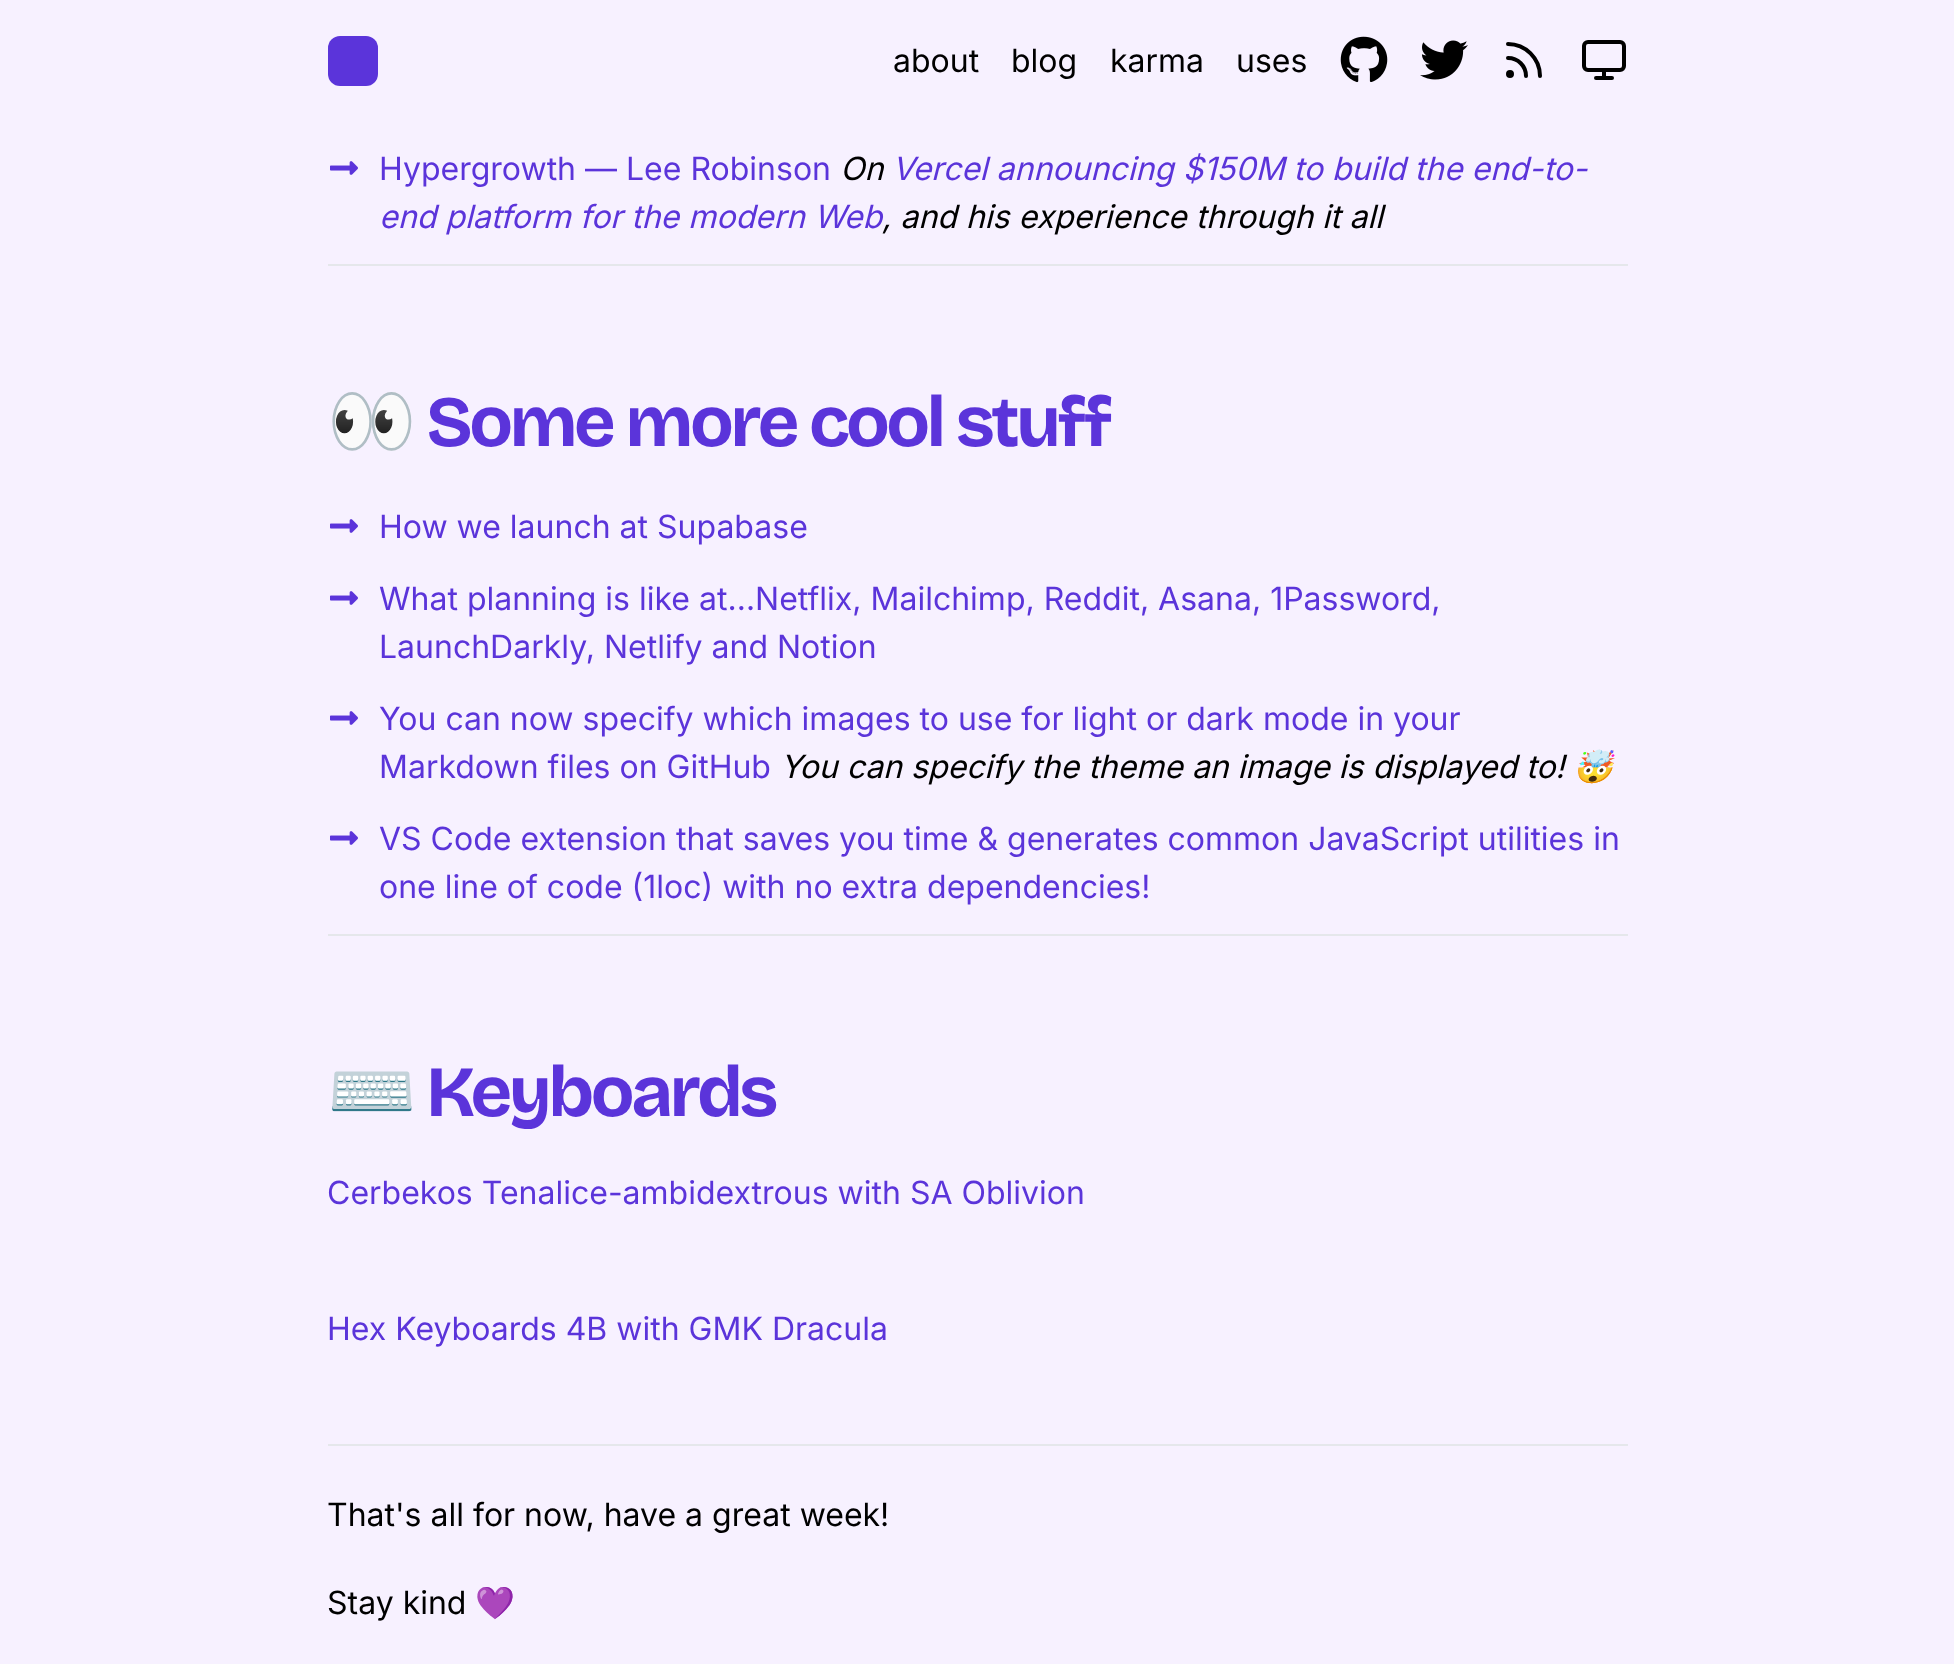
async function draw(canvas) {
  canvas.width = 1954;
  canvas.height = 1664;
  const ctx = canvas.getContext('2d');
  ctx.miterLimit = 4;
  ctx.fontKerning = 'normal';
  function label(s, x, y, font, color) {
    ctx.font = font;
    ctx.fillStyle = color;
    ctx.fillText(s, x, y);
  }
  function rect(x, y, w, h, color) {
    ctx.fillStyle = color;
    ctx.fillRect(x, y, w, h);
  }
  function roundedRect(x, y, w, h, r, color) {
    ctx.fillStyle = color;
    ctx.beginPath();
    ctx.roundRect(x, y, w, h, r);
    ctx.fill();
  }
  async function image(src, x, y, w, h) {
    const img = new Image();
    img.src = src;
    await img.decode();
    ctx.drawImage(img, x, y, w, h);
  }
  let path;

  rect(0, 0, 1954, 1664, '#f7f1ff');
  roundedRect(328, 36, 50, 50, 12, '#5b34da');
  label('about', 893, 72, '32px Inter', '#000');
  label('blog', 1011, 72, '32px Inter', '#000');
  label('karma', 1110, 72, '32px Inter', '#000');
  label('uses', 1236, 72, '32px Inter', '#000');
  await image('assets/img1.png', 1340, 36, 48, 47);
  await image('assets/img2.png', 1420, 40, 48, 40);
  path = new Path2D('M1508 58C1518 58 1526 66 1526 76M1508 44C1525.5 44 1540 58.5 1540 76');
  ctx.strokeStyle = '#000';
  ctx.lineWidth = 4;
  ctx.lineCap = 'round';
  ctx.lineJoin = 'round';
  ctx.stroke(path);
  ctx.beginPath();
  ctx.arc(1510, 74, 2, 0, 2 * Math.PI);
  ctx.stroke();
  ctx.beginPath();
  ctx.roundRect(1584, 42, 40, 28, 4);
  ctx.lineJoin = 'miter';
  ctx.stroke();
  path = new Path2D('M1596 78H1612M1604 70V78');
  ctx.lineJoin = 'round';
  ctx.stroke(path);
  await image('assets/img3.png', 330, 161, 28, 14);
  label('Hypergrowth — Lee Robinson', 379, 180, '32px Inter', '#5b34da');
  label('On', 840, 180, 'italic 32px Inter', '#000');
  label('Vercel announcing $150M to build the end-to-', 892, 180, 'italic 32px Inter', '#5b34da');
  label('end platform for the modern Web', 379, 228, 'italic 32px Inter', '#5b34da');
  label(', and his experience through it all', 882, 228, 'italic 32px Inter', '#000');
  rect(328, 264, 1300, 2, '#e5e7eb');
  ctx.letterSpacing = '-3.6px';
  label('👀', 327, 446, 'bold 72px Noto Color Emoji', '#5b34da');
  label('Some more cool stuff', 426, 446, 'bold 72px Bricolage Grotesque', '#5b34da');
  await image('assets/img3.png', 330, 519, 28, 14);
  ctx.letterSpacing = '0px';
  label('How we launch at Supabase', 379, 538, '32px Inter', '#5b34da');
  await image('assets/img3.png', 330, 591, 28, 14);
  label('What planning is like at…Netflix, Mailchimp, Reddit, Asana, 1Password,', 379, 610, '32px Inter', '#5b34da');
  label('LaunchDarkly, Netlify and Notion', 379, 658, '32px Inter', '#5b34da');
  await image('assets/img3.png', 330, 711, 28, 14);
  label('You can now specify which images to use for light or dark mode in your', 379, 730, '32px Inter', '#5b34da');
  label('Markdown files on GitHub', 379, 778, '32px Inter', '#5b34da');
  label('You can specify the theme an image is displayed to!', 780, 778, 'italic 32px Inter', '#000');
  label('🤯', 1573, 778, 'italic 32px Noto Color Emoji', '#000');
  await image('assets/img3.png', 330, 831, 28, 14);
  label('VS Code extension that saves you time & generates common JavaScript utilities in', 379, 850, '32px Inter', '#5b34da');
  label('one line of code (1loc) with no extra dependencies!', 379, 898, '32px Inter', '#5b34da');
  rect(328, 934, 1300, 2, '#e5e7eb');
  ctx.letterSpacing = '-3.6px';
  label('⌨️', 327, 1116, 'bold 72px Noto Color Emoji', '#5b34da');
  label('Keyboards', 426, 1116, 'bold 72px Bricolage Grotesque', '#5b34da');
  ctx.letterSpacing = '0px';
  label('Cerbekos Tenalice-ambidextrous with SA Oblivion', 327, 1204, '32px Inter', '#5b34da');
  label('Hex Keyboards 4B with GMK Dracula', 327, 1340, '32px Inter', '#5b34da');
  rect(328, 1444, 1300, 2, '#e5e7eb');
  label('That\'s all for now, have a great week!', 327, 1526, '32px Inter', '#000');
  label('Stay kind', 327, 1614, '32px Inter', '#000');
  label('💜', 475, 1614, '32px Noto Color Emoji', '#000');
}

draw(document.querySelector('canvas'));
